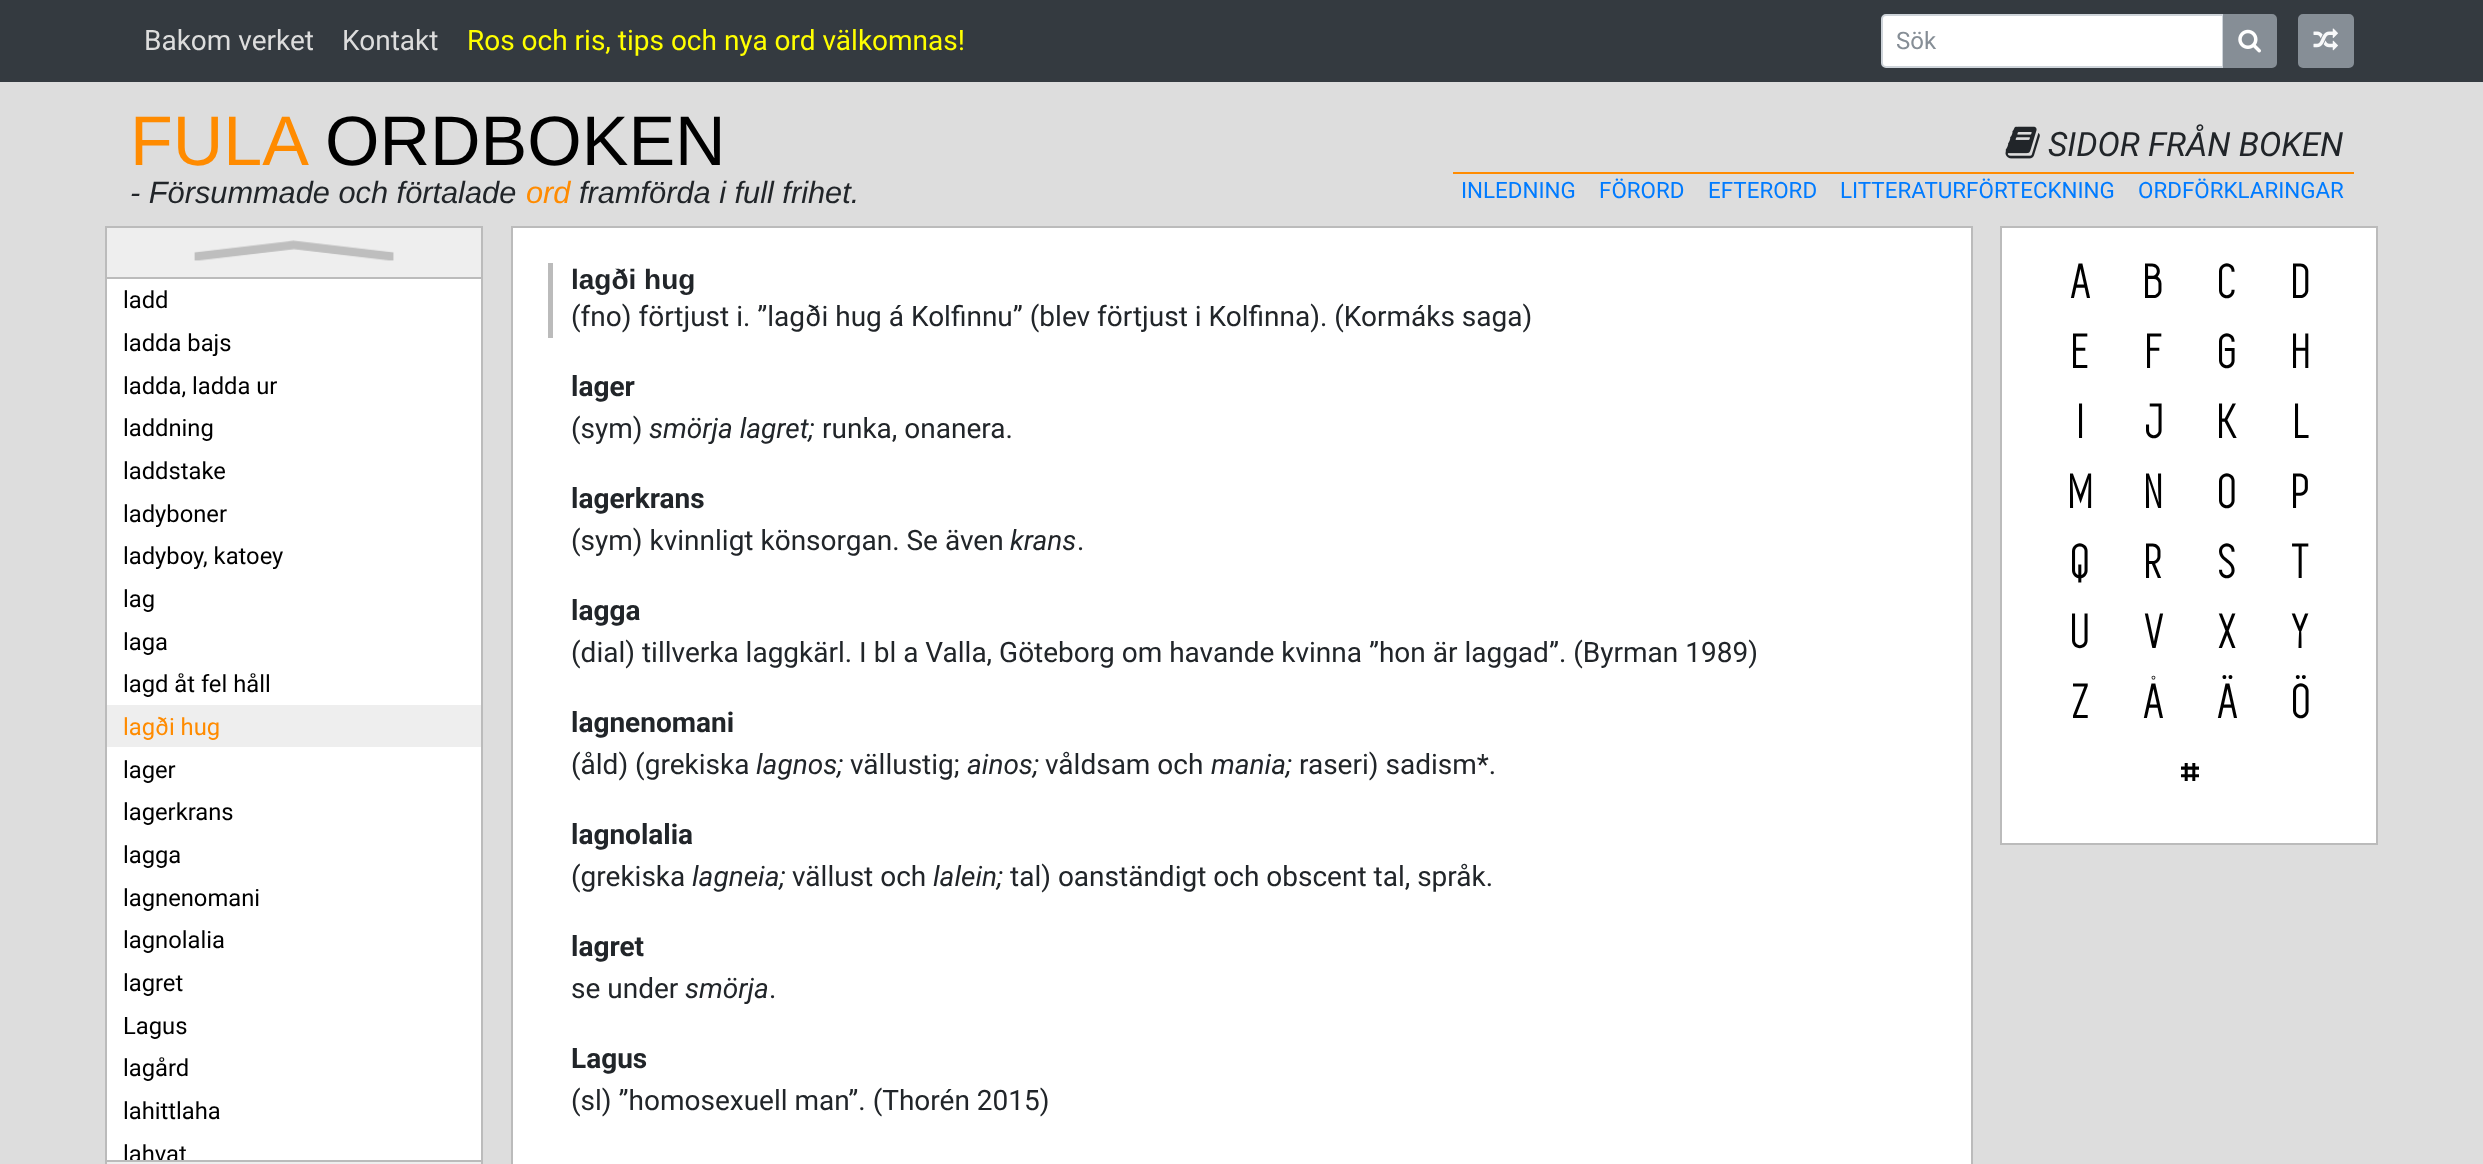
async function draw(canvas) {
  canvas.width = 2483;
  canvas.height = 1164;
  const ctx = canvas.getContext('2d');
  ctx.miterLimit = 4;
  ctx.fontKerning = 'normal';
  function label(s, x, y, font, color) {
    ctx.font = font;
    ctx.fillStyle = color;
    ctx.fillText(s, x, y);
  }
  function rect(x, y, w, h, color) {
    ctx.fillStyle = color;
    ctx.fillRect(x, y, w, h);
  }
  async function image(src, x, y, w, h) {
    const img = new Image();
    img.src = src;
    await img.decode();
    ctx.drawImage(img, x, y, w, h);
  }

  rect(0, 0, 2483, 1164, '#ddd');
  rect(0, 0, 2483, 82, '#343a40');
  label('Bakom verket', 144, 50, '28px Roboto', '#ddd');
  label('Kontakt', 342, 50, '28px Roboto', '#ddd');
  label('Ros och ris, tips och nya ord välkomnas!', 467, 50, '28px Roboto', '#ff0');
  ctx.fillStyle = '#fff';
  ctx.beginPath();
  ctx.roundRect(1882, 15, 341, 52, [4, 0, 0, 4]);
  ctx.fill();
  ctx.strokeStyle = '#ced4da';
  ctx.lineWidth = 2;
  ctx.stroke();
  label('Sök', 1896, 49, '24px Roboto', '#868e96');
  ctx.beginPath();
  ctx.roundRect(2224, 15, 52, 52, [0, 4, 4, 0]);
  ctx.fill();
  ctx.strokeStyle = '#868e96';
  ctx.stroke();
  await image('assets/img1.png', 2238, 29, 23, 24);
  ctx.beginPath();
  ctx.roundRect(2299, 15, 54, 52, 4);
  ctx.fill();
  ctx.stroke();
  await image('assets/img2.png', 2313, 28, 25, 23);
  label('FULA', 130, 165, '70px Liberation Sans', '#ff8b00');
  label('ORDBOKEN', 325, 165, '70px Liberation Sans', '#000');
  label('- Försummade och förtalade', 130, 203, 'italic 30.75px Liberation Sans', '#212529');
  label('ord', 526, 203, 'italic 30.75px Liberation Sans', '#ff8b00');
  label('framförda i full frihet.', 579, 203, 'italic 30.75px Liberation Sans', '#212529');
  rect(1453, 172, 901, 2, '#ff8b00');
  await image('assets/img3.png', 2005, 126, 35, 33);
  label('SIDOR FRÅN BOKEN', 2048, 156, 'italic 33.5px Roboto', '#212529');
  label('INLEDNING', 1461, 198, '22.4px Roboto', '#007bff');
  label('FÖRORD', 1599, 198, '22.4px Roboto', '#007bff');
  label('EFTERORD', 1708, 198, '22.4px Roboto', '#007bff');
  label('LITTERATURFÖRTECKNING', 1840, 198, '22.4px Roboto', '#007bff');
  label('ORDFÖRKLARINGAR', 2138, 198, '22.4px Roboto', '#007bff');
  rect(107, 279, 374, 881, '#fff');
  ctx.strokeStyle = '#bbb';
  ctx.strokeRect(106, 227, 376, 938);
  rect(107, 228, 374, 49, '#eee');
  rect(107, 277, 374, 2, '#bbb');
  await image('assets/img4.png', 194, 240, 200, 21);
  label('ladd', 123, 308, '23.75px Roboto', '#000');
  label('ladda bajs', 123, 351, '23.75px Roboto', '#000');
  label('ladda, ladda ur', 123, 394, '23.75px Roboto', '#000');
  label('laddning', 123, 436, '23.75px Roboto', '#000');
  label('laddstake', 123, 479, '23.75px Roboto', '#000');
  label('ladyboner', 123, 522, '23.75px Roboto', '#000');
  label('ladyboy, katoey', 123, 564, '23.75px Roboto', '#000');
  label('lag', 123, 607, '23.75px Roboto', '#000');
  label('laga', 123, 650, '23.75px Roboto', '#000');
  label('lagd åt fel håll', 123, 692, '23.75px Roboto', '#000');
  rect(107, 705, 374, 42, '#eee');
  label('lagði hug', 123, 735, '23.75px Roboto', '#ff8b00');
  label('lager', 123, 778, '23.75px Roboto', '#000');
  label('lagerkrans', 123, 820, '23.75px Roboto', '#000');
  label('lagga', 123, 863, '23.75px Roboto', '#000');
  label('lagnenomani', 123, 906, '23.75px Roboto', '#000');
  label('lagnolalia', 123, 948, '23.75px Roboto', '#000');
  label('lagret', 123, 991, '23.75px Roboto', '#000');
  label('Lagus', 123, 1034, '23.75px Roboto', '#000');
  label('lagård', 123, 1076, '23.75px Roboto', '#000');
  label('lahittlaha', 123, 1119, '23.75px Roboto', '#000');
  ctx.save();
  ctx.beginPath();
  ctx.rect(107, 1132, 374, 28);
  ctx.clip();
  label('lahvat', 123, 1162, '23.75px Roboto', '#000');
  ctx.restore();
  rect(107, 1162, 374, 2, '#eee');
  rect(107, 1160, 374, 2, '#bbb');
  rect(513, 228, 1458, 936, '#fff');
  rect(511, 226, 1461, 2, '#bbb');
  rect(1971, 226, 2, 938, '#bbb');
  rect(511, 226, 2, 938, '#bbb');
  rect(548, 263, 5, 75, '#bbb');
  label('lagði hug', 571, 289, 'bold 28px Liberation Sans', '#212529');
  label('(fno) förtjust i. ”lagði hug á Kolfinnu” (blev förtjust i Kolfinna). (Kormáks saga)', 571, 326, '28px Roboto', '#212529');
  label('lager', 571, 396, 'bold 28px Roboto', '#212529');
  label('(sym)', 571, 438, '28px Roboto', '#212529');
  label('smörja lagret;', 649, 438, 'italic 28px Roboto', '#212529');
  label('runka, onanera.', 822, 438, '28px Roboto', '#212529');
  label('lagerkrans', 571, 508, 'bold 28px Roboto', '#212529');
  label('(sym) kvinnligt könsorgan. Se även', 571, 550, '28px Roboto', '#212529');
  label('krans', 1010, 550, 'italic 28px Roboto', '#212529');
  label('.', 1077, 550, '28px Roboto', '#212529');
  label('lagga', 571, 620, 'bold 28px Roboto', '#212529');
  label('(dial) tillverka laggkärl. I bl a Valla, Göteborg om havande kvinna ”hon är laggad”. (Byrman 1989)', 571, 662, '28px Roboto', '#212529');
  label('lagnenomani', 571, 732, 'bold 28px Roboto', '#212529');
  label('(åld) (grekiska', 571, 774, '28px Roboto', '#212529');
  label('lagnos;', 756, 774, 'italic 28px Roboto', '#212529');
  label('vällustig;', 850, 774, '28px Roboto', '#212529');
  label('ainos;', 967, 774, 'italic 28px Roboto', '#212529');
  label('våldsam och', 1045, 774, '28px Roboto', '#212529');
  label('mania;', 1211, 774, 'italic 28px Roboto', '#212529');
  label('raseri) sadism*.', 1299, 774, '28px Roboto', '#212529');
  label('lagnolalia', 571, 844, 'bold 28px Roboto', '#212529');
  label('(grekiska', 571, 886, '28px Roboto', '#212529');
  label('lagneia;', 692, 886, 'italic 28px Roboto', '#212529');
  label('vällust och', 792, 886, '28px Roboto', '#212529');
  label('lalein;', 933, 886, 'italic 28px Roboto', '#212529');
  label('tal) oanständigt och obscent tal, språk.', 1010, 886, '28px Roboto', '#212529');
  label('lagret', 571, 956, 'bold 28px Roboto', '#212529');
  label('se under', 571, 998, '28px Roboto', '#212529');
  label('smörja', 685, 998, 'italic 28px Roboto', '#212529');
  label('.', 769, 998, '28px Roboto', '#212529');
  label('Lagus', 571, 1068, 'bold 28px Roboto', '#212529');
  label('(sl) ”homosexuell man”. (Thorén 2015)', 571, 1110, '28px Roboto', '#212529');
  ctx.fillStyle = '#fff';
  ctx.beginPath();
  ctx.rect(2001, 227, 376, 617);
  ctx.fill();
  ctx.stroke();
  label('A', 2072, 298, 'bold 49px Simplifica', '#000');
  label('B', 2145, 298, 'bold 49px Simplifica', '#000');
  label('C', 2219, 298, 'bold 49px Simplifica', '#000');
  label('D', 2293, 298, 'bold 49px Simplifica', '#000');
  label('E', 2073, 368, 'bold 49px Simplifica', '#000');
  label('F', 2147, 368, 'bold 49px Simplifica', '#000');
  label('G', 2219, 368, 'bold 49px Simplifica', '#000');
  label('H', 2293, 368, 'bold 49px Simplifica', '#000');
  label('I', 2079, 438, 'bold 49px Simplifica', '#000');
  label('J', 2146, 438, 'bold 49px Simplifica', '#000');
  label('K', 2219, 438, 'bold 49px Simplifica', '#000');
  label('L', 2295, 438, 'bold 49px Simplifica', '#000');
  label('M', 2070, 508, 'bold 49px Simplifica', '#000');
  label('N', 2146, 508, 'bold 49px Simplifica', '#000');
  label('O', 2219, 508, 'bold 49px Simplifica', '#000');
  label('P', 2293, 508, 'bold 49px Simplifica', '#000');
  label('Q', 2072, 578, 'bold 49px Simplifica', '#000');
  label('R', 2146, 578, 'bold 49px Simplifica', '#000');
  label('S', 2219, 578, 'bold 49px Simplifica', '#000');
  label('T', 2294, 578, 'bold 49px Simplifica', '#000');
  label('U', 2072, 648, 'bold 49px Simplifica', '#000');
  label('V', 2145, 648, 'bold 49px Simplifica', '#000');
  label('X', 2219, 648, 'bold 49px Simplifica', '#000');
  label('Y', 2293, 648, 'bold 49px Simplifica', '#000');
  label('Z', 2073, 718, 'bold 49px Simplifica', '#000');
  label('Å', 2145, 718, 'bold 49px Simplifica', '#000');
  label('Ä', 2219, 718, 'bold 49px Simplifica', '#000');
  label('Ö', 2293, 718, 'bold 49px Simplifica', '#000');
  label('#', 2181, 788, 'bold 49px Simplifica', '#000');
}

draw(document.querySelector('canvas'));
